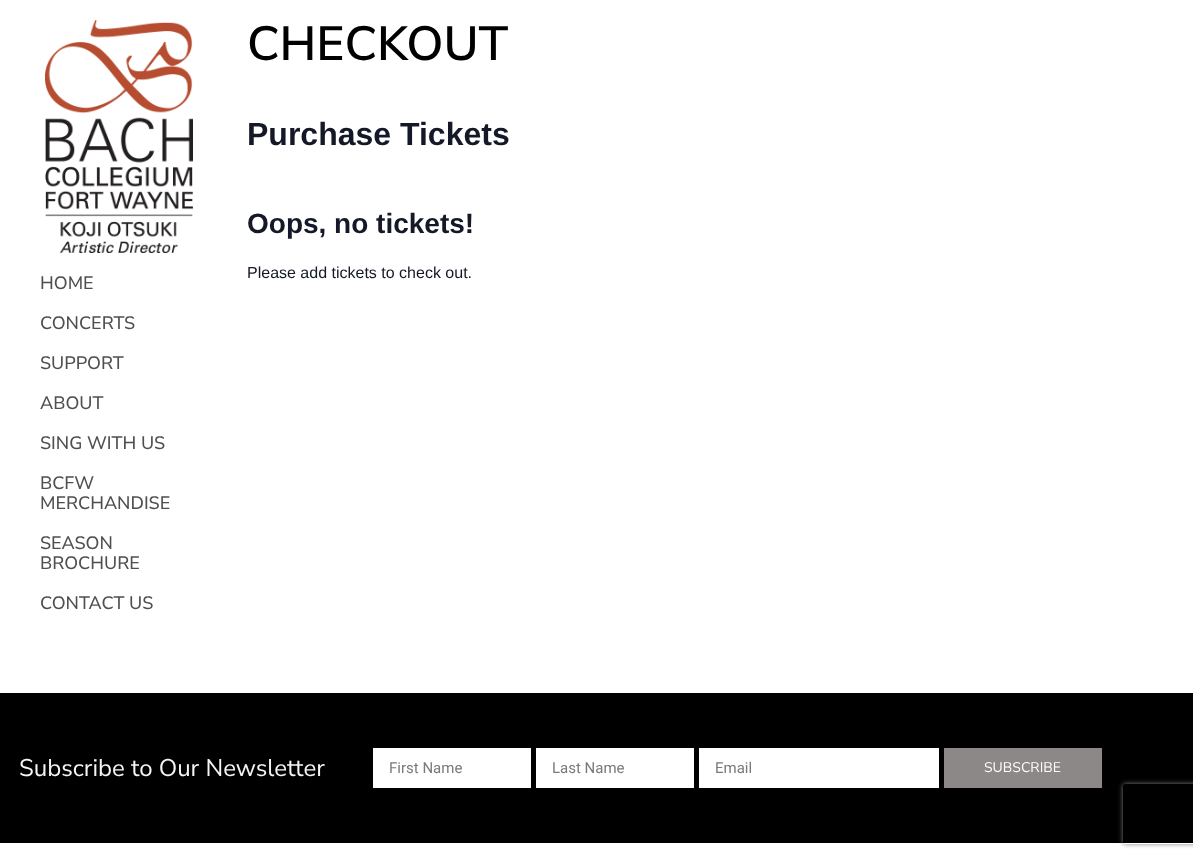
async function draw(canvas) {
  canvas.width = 1193;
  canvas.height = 858;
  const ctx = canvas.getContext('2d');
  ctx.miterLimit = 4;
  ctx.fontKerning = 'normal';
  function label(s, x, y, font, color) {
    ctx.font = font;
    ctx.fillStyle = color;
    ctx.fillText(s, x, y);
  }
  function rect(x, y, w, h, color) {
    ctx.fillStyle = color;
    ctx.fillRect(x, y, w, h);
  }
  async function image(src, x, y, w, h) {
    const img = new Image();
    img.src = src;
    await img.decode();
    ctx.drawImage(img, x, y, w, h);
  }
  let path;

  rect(0, 0, 1193, 858, '#fff');
  label('CHECKOUT', 247, 60, '600 48px Nunito Sans', '#000');
  label('Purchase Tickets', 247, 145, 'bold 32px Liberation Sans', '#141827');
  label('Oops, no tickets!', 247, 233, 'bold 28px Liberation Sans', '#141827');
  label('Please add tickets to check out.', 247, 278, '16px Liberation Sans', '#141827');
  await image('assets/img1.png', 45, 20, 148, 233);
  label('HOME', 40, 289, '500 18px Nunito Sans', '#4e4f51');
  label('CONCERTS', 40, 329, '500 18px Nunito Sans', '#4e4f51');
  label('SUPPORT', 40, 369, '500 18px Nunito Sans', '#4e4f51');
  label('ABOUT', 40, 409, '500 18px Nunito Sans', '#4e4f51');
  label('SING WITH US', 40, 449, '500 18px Nunito Sans', '#4e4f51');
  label('BCFW', 40, 489, '500 18px Nunito Sans', '#4e4f51');
  label('MERCHANDISE', 40, 509, '500 18px Nunito Sans', '#4e4f51');
  label('SEASON', 40, 549, '500 18px Nunito Sans', '#4e4f51');
  label('BROCHURE', 40, 569, '500 18px Nunito Sans', '#4e4f51');
  label('CONTACT US', 40, 609, '500 18px Nunito Sans', '#4e4f51');
  rect(0, 693, 1193, 150, '#000');
  label('Subscribe to Our Newsletter', 19, 776, '24px Nunito Sans', '#f7f4f2');
  rect(373, 748, 158, 40, '#fff');
  label('First Name', 389, 773, '15px Roboto', '#797a7c');
  rect(536, 748, 158, 40, '#fff');
  label('Last Name', 552, 773, '15px Roboto', '#797a7c');
  rect(699, 748, 240, 40, '#fff');
  label('Email', 715, 773, '15px Roboto', '#797a7c');
  rect(944, 748, 158, 40, '#8b8887');
  label('SUBSCRIBE', 984, 772, '14px Nunito Sans', '#fff');
  ctx.save();
  path = new Path2D('M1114 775H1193V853H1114ZM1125 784H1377C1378 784 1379 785 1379 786V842C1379 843 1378 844 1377 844H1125C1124 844 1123 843 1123 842V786C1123 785 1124 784 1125 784Z');
  ctx.clip(path, 'evenodd');
  ctx.fillStyle = '#808080';
  ctx.filter = 'blur(2.5px)';
  ctx.beginPath();
  ctx.roundRect(1123, 784, 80, 60, 2);
  ctx.fill();
  ctx.filter = 'none';
  ctx.restore();
}

draw(document.querySelector('canvas'));
